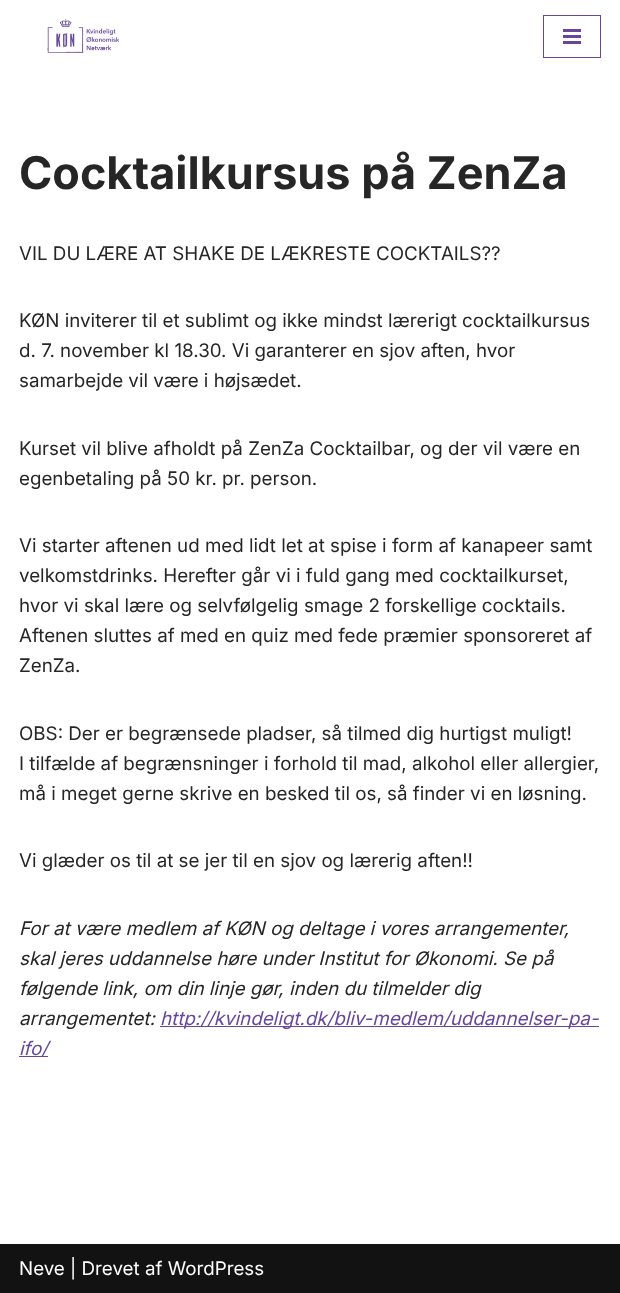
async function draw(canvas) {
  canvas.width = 620;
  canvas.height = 1293;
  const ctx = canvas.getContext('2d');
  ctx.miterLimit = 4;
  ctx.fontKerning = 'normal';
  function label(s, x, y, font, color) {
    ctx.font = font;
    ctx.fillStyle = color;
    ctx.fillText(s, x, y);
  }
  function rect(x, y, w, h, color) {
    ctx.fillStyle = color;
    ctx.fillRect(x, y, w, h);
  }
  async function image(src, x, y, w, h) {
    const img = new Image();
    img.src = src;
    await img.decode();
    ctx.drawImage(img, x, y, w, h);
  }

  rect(0, 0, 620, 1293, '#fff');
  await image('assets/img1.png', 47, 18, 72, 35);
  ctx.strokeStyle = '#68479b';
  ctx.strokeRect(543.5, 15.5, 57, 42);
  rect(563, 29, 18, 3, '#68479b');
  rect(563, 35, 18, 3, '#68479b');
  rect(563, 41, 18, 3, '#68479b');
  label('Cocktailkursus på ZenZa', 19, 189, 'bold 45px Inter', '#272626');
  label('VIL DU LÆRE AT SHAKE DE LÆKRESTE COCKTAILS??', 19, 260, '18.75px Inter', '#272626');
  label('KØN inviterer til et sublimt og ikke mindst lærerigt cocktailkursus', 19, 327, '18.75px Inter', '#272626');
  label('d. 7. november kl 18.30. Vi garanterer en sjov aften, hvor', 19, 357, '18.75px Inter', '#272626');
  label('samarbejde vil være i højsædet.', 19, 387, '18.75px Inter', '#272626');
  label('Kurset vil blive afholdt på ZenZa Cocktailbar, og der vil være en', 19, 455, '18.75px Inter', '#272626');
  label('egenbetaling på 50 kr. pr. person.', 19, 485, '18.75px Inter', '#272626');
  label('Vi starter aftenen ud med lidt let at spise i form af kanapeer samt', 19, 552, '18.75px Inter', '#272626');
  label('velkomstdrinks. Herefter går vi i fuld gang med cocktailkurset,', 19, 582, '18.75px Inter', '#272626');
  label('hvor vi skal lære og selvfølgelig smage 2 forskellige cocktails.', 19, 612, '18.75px Inter', '#272626');
  label('Aftenen sluttes af med en quiz med fede præmier sponsoreret af', 19, 642, '18.75px Inter', '#272626');
  label('ZenZa.', 19, 672, '18.75px Inter', '#272626');
  label('OBS: Der er begrænsede pladser, så tilmed dig hurtigst muligt!', 19, 740, '18.75px Inter', '#272626');
  label('I tilfælde af begrænsninger i forhold til mad, alkohol eller allergier,', 19, 770, '18.75px Inter', '#272626');
  label('må i meget gerne skrive en besked til os, så finder vi en løsning.', 19, 800, '18.75px Inter', '#272626');
  label('Vi glæder os til at se jer til en sjov og lærerig aften!!', 19, 867, '18.75px Inter', '#272626');
  label('For at være medlem af KØN og deltage i vores arrangementer,', 19, 935, 'italic 18.75px Inter', '#272626');
  label('skal jeres uddannelse høre under Institut for Økonomi. Se på', 19, 965, 'italic 18.75px Inter', '#272626');
  label('følgende link, om din linje gør, inden du tilmelder dig', 19, 995, 'italic 18.75px Inter', '#272626');
  label('arrangementet:', 19, 1025, 'italic 18.75px Inter', '#272626');
  rect(160, 1026, 439, 1, '#68479b');
  label('http://kvindeligt.dk/bliv-medlem/uddannelser-pa-', 160, 1025, 'italic 18.75px Inter', '#68479b');
  rect(19, 1056, 29, 1, '#68479b');
  label('ifo/', 19, 1055, 'italic 18.75px Inter', '#68479b');
  rect(0, 1244, 620, 49, '#121212');
  label('Neve | Drevet af WordPress', 19, 1275, '18.75px Inter', '#fff');
}

draw(document.querySelector('canvas'));
